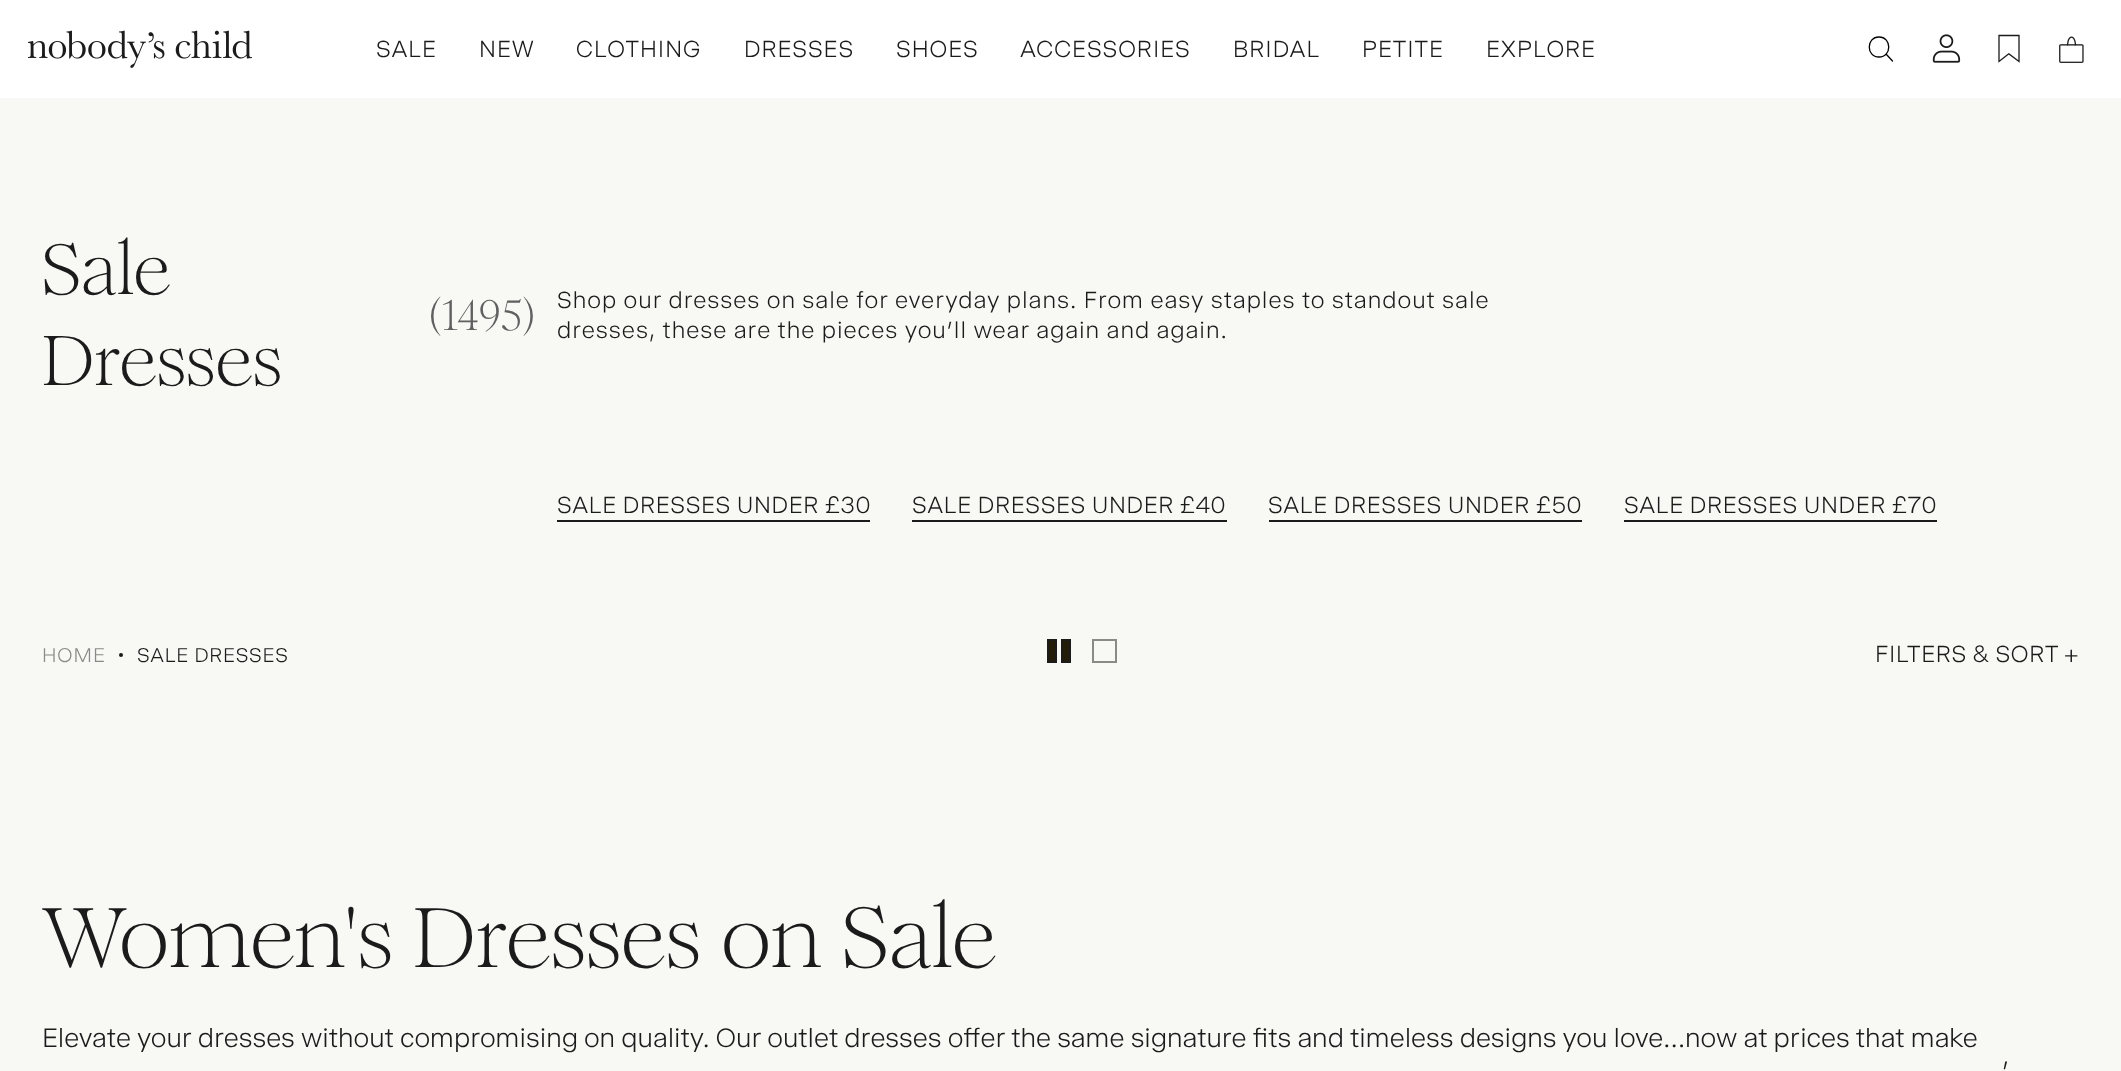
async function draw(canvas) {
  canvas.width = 2121;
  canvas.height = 1071;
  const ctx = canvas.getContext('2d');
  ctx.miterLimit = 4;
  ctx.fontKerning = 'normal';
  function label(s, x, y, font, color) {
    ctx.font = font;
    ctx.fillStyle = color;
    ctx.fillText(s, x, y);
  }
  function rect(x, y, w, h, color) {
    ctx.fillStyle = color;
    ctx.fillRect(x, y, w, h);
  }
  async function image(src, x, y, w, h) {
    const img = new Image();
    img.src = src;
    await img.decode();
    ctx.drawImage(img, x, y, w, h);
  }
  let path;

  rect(0, 0, 2121, 1071, '#f8f9f5');
  rect(0, 0, 2121, 98, '#fff');
  await image('assets/img1.png', 28, 30, 224, 38);
  ctx.letterSpacing = '0.98px';
  label('SALE', 376, 57, '300 24.5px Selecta', '#1b1b1b');
  label('NEW', 479, 57, '300 24.5px Selecta', '#1b1b1b');
  label('CLOTHING', 576, 57, '300 24.5px Selecta', '#1b1b1b');
  label('DRESSES', 744, 57, '300 24.5px Selecta', '#1b1b1b');
  label('SHOES', 896, 57, '300 24.5px Selecta', '#1b1b1b');
  label('ACCESSORIES', 1020, 57, '300 24.5px Selecta', '#1b1b1b');
  label('BRIDAL', 1233, 57, '300 24.5px Selecta', '#1b1b1b');
  label('PETITE', 1362, 57, '300 24.5px Selecta', '#1b1b1b');
  label('EXPLORE', 1486, 57, '300 24.5px Selecta', '#1b1b1b');
  path = new Path2D('M1879 57C1892 57 1892 37 1879 37C1866 37 1866 57 1879 57ZM1886 54L1892.5 61');
  ctx.strokeStyle = '#000';
  ctx.lineWidth = 1.3;
  ctx.lineCap = 'round';
  ctx.lineJoin = 'round';
  ctx.stroke(path);
  await image('assets/img2.png', 1932, 34, 29, 29);
  path = new Path2D('M2008.5 54L1999 61.5V35.5H2019V61.5L2009 54Z');
  ctx.strokeStyle = '#1b1b1b';
  ctx.lineCap = 'butt';
  ctx.lineJoin = 'miter';
  ctx.stroke(path);
  await image('assets/img3.png', 2059, 36, 25, 27);
  ctx.letterSpacing = '0px';
  label('Sale', 42, 294, '70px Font', '#1b1b1b');
  label('Dresses', 42, 385, '70px Font', '#1b1b1b');
  label('(1495)', 429, 330, '42px Font', '#606060');
  ctx.letterSpacing = '0.98px';
  label('Shop our dresses on sale for everyday plans. From easy staples to standout sale', 557, 308, '300 24.5px Selecta', '#1b1b1b');
  label('dresses, these are the pieces you’ll wear again and again.', 557, 338, '300 24.5px Selecta', '#1b1b1b');
  ctx.letterSpacing = '0.7px';
  label('SALE DRESSES UNDER £30', 557, 513, '300 24.5px Selecta', '#1b1b1b');
  rect(557, 520, 313, 2, '#1b1b1b');
  label('SALE DRESSES UNDER £40', 912, 513, '300 24.5px Selecta', '#1b1b1b');
  rect(912, 520, 315, 2, '#1b1b1b');
  label('SALE DRESSES UNDER £50', 1268, 513, '300 24.5px Selecta', '#1b1b1b');
  rect(1269, 520, 313, 2, '#1b1b1b');
  label('SALE DRESSES UNDER £70', 1624, 513, '300 24.5px Selecta', '#1b1b1b');
  rect(1624, 520, 313, 2, '#1b1b1b');
  ctx.letterSpacing = '0.8px';
  label('HOME', 42, 662, '300 21px Selecta', '#8a8a88');
  ctx.fillStyle = '#1b1b1b';
  ctx.beginPath();
  ctx.arc(121, 655, 2, 0, 2 * Math.PI);
  ctx.fill();
  label('SALE DRESSES', 137, 662, '300 21px Selecta', '#1b1b1b');
  ctx.fillStyle = '#231c09';
  ctx.beginPath();
  ctx.rect(1048, 640, 8, 22);
  ctx.fill();
  ctx.lineWidth = 2;
  ctx.stroke();
  ctx.beginPath();
  ctx.rect(1062, 640, 8, 22);
  ctx.fill();
  ctx.stroke();
  ctx.strokeStyle = '#8a8a88';
  ctx.strokeRect(1093, 640, 23, 22);
  ctx.letterSpacing = '0.7px';
  label('FILTERS & SORT +', 1875, 662, '300 24.5px Selecta', '#1b1b1b');
  ctx.letterSpacing = '0px';
  label('Women\'s Dresses on Sale', 42, 967, '84px Font', '#1b1b1b');
  label('Elevate your dresses without compromising on quality. Our outlet dresses offer the same signature fits and timeless designs you love...now at prices that make', 42, 1047, '300 28px Selecta', '#1b1b1b');
  label('\'', 2002, 1080, '300 28px Selecta', '#1b1b1b');
}

draw(document.querySelector('canvas'));
